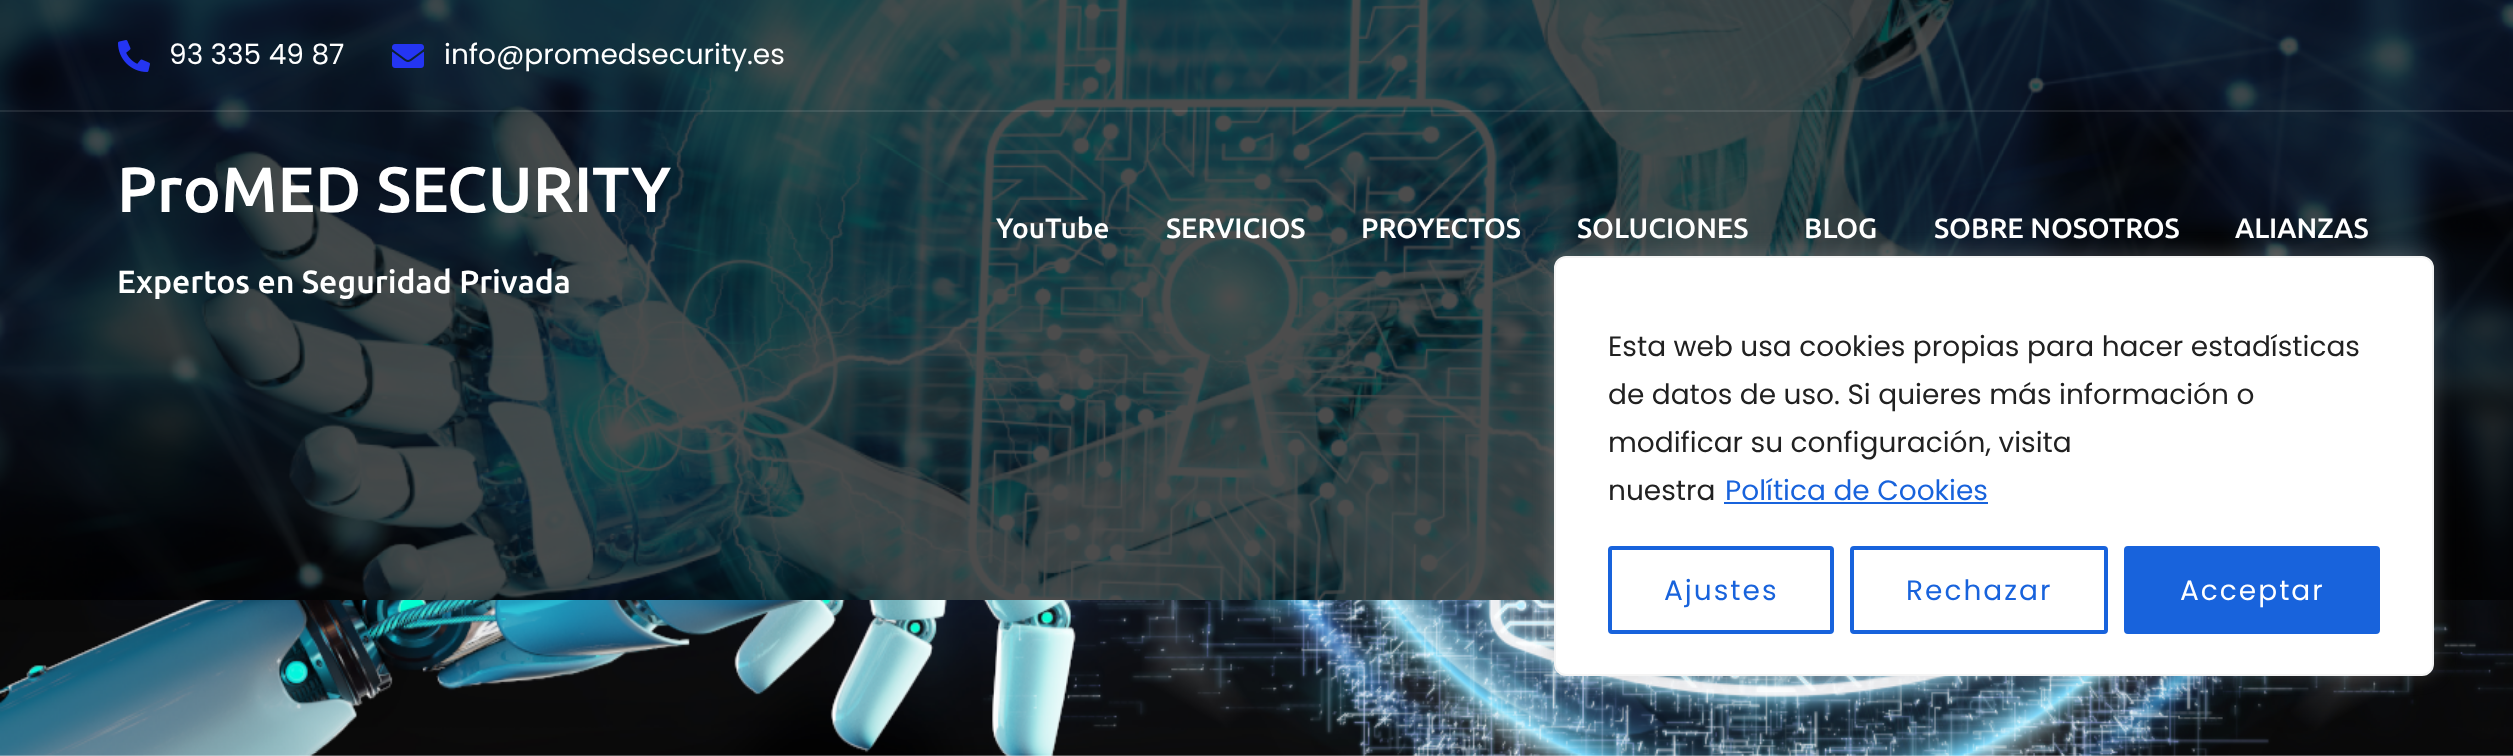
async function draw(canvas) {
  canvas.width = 2513;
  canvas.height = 756;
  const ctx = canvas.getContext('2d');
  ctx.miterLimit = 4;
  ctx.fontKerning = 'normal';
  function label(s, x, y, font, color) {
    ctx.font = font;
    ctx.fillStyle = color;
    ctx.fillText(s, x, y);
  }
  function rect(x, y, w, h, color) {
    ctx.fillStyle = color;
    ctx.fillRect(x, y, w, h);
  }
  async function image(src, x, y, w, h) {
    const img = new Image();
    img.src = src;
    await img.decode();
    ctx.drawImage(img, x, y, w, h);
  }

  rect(0, 0, 2513, 756, '#fff');
  await image('assets/img1.png', 0, 600, 2513, 156);
  await image('assets/img2.png', 0, 0, 2513, 600);
  rect(0, 110, 2513, 2, '#f1f1f11a');
  await image('assets/img3.png', 118, 40, 32, 32);
  label('93 335 49 87', 169, 64, '28px Poppins', '#fff');
  await image('assets/img4.png', 392, 44, 32, 24);
  label('info@promedsecurity.es', 444, 64, '28px Poppins', '#fff');
  label('ProMED SECURITY', 117, 212, '500 64px Ubuntu', '#fff');
  label('Expertos en Seguridad Privada', 117, 293, '500 32px Ubuntu', '#fff');
  label('YouTube', 996, 238, '500 28px Ubuntu', '#fff');
  label('SERVICIOS', 1166, 238, '500 28px Ubuntu', '#fff');
  label('PROYECTOS', 1361, 238, '500 28px Ubuntu', '#fff');
  label('SOLUCIONES', 1577, 238, '500 28px Ubuntu', '#fff');
  label('BLOG', 1804, 238, '500 28px Ubuntu', '#fff');
  label('SOBRE NOSOTROS', 1934, 238, '500 28px Ubuntu', '#fff');
  label('ALIANZAS', 2235, 238, '500 28px Ubuntu', '#fff');
  ctx.fillStyle = '#acabab4d';
  ctx.filter = 'blur(10px)';
  ctx.beginPath();
  ctx.roundRect(1554, 254, 880, 420, 12);
  ctx.fill();
  ctx.filter = 'none';
  ctx.fillStyle = '#fff';
  ctx.beginPath();
  ctx.roundRect(1555, 257, 878, 418, 11);
  ctx.fill();
  ctx.strokeStyle = '#f4f4f4';
  ctx.lineWidth = 2;
  ctx.stroke();
  label('Esta web usa cookies propias para hacer estadísticas', 1608, 356, '28px Poppins', '#212121');
  label('de datos de uso. Si quieres más información o', 1608, 404, '28px Poppins', '#212121');
  label('modificar su configuración, visita', 1608, 452, '28px Poppins', '#212121');
  label('nuestra', 1608, 500, '28px Poppins', '#212121');
  label('Política de Cookies', 1725, 500, '28px Poppins', '#1863dc');
  rect(1724, 502, 264, 2, '#1863dc');
  ctx.beginPath();
  ctx.roundRect(1610, 548, 222, 84, 2);
  ctx.strokeStyle = '#1863dc';
  ctx.lineWidth = 4;
  ctx.stroke();
  ctx.letterSpacing = '2px';
  label('Ajustes', 1664, 600, '28px Poppins', '#1863dc');
  ctx.beginPath();
  ctx.roundRect(1852, 548, 254, 84, 2);
  ctx.stroke();
  label('Rechazar', 1906, 600, '28px Poppins', '#1863dc');
  ctx.beginPath();
  ctx.roundRect(2126, 548, 252, 84, 2);
  ctx.fill();
  ctx.stroke();
  label('Acceptar', 2180, 600, '28px Poppins', '#fff');
}

draw(document.querySelector('canvas'));
